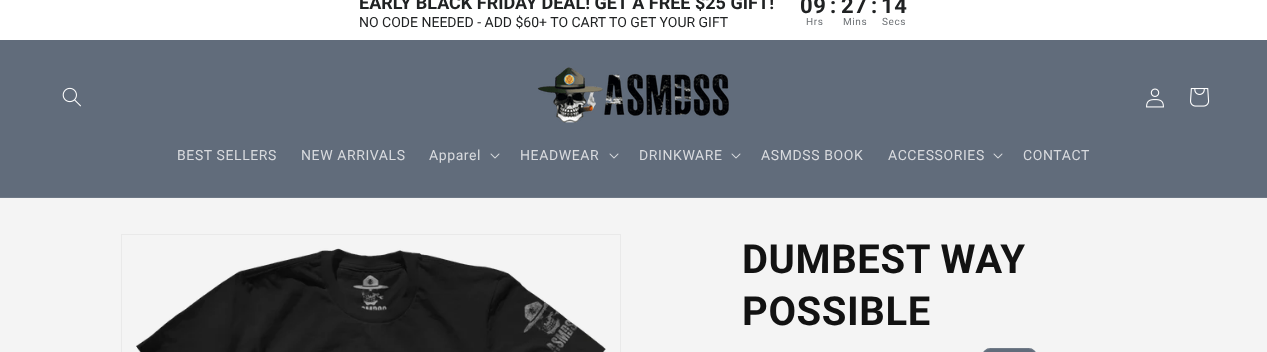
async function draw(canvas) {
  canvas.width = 1267;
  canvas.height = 352;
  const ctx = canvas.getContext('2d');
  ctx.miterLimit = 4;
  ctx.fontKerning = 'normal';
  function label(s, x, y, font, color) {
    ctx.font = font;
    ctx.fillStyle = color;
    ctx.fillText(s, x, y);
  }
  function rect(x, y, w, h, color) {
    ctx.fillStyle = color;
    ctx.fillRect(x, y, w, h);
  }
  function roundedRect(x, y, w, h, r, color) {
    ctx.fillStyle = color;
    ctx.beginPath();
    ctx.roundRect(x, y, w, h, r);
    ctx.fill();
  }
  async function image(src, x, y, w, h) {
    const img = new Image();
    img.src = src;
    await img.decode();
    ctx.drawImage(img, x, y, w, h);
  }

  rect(0, 0, 1267, 352, '#f4f4f4');
  rect(0, 0, 1267, 40, '#fff');
  label('EARLY BLACK FRIDAY DEAL! GET A FREE $25 GIFT!', 359, 9, 'bold 18px Roboto', '#202223');
  label('NO CODE NEEDED - ADD $60+ TO CART TO GET YOUR GIFT', 359, 27, '14px Roboto', '#202223');
  ctx.letterSpacing = '0.6px';
  label('09', 800, 13, 'bold 22px Roboto', '#202223');
  label(':', 830, 13, 'bold 22px Roboto', '#202223');
  label('27', 841, 13, 'bold 22px Roboto', '#202223');
  label(':', 871, 13, 'bold 22px Roboto', '#202223');
  label('14', 881, 13, 'bold 22px Roboto', '#202223');
  label('Hrs', 806, 25, '10px Roboto', '#6d7175');
  label('Mins', 843, 25, '10px Roboto', '#6d7175');
  label('Secs', 882, 25, '10px Roboto', '#6d7175');
  rect(0, 40, 1267, 157, '#616c7b');
  rect(0, 197, 1267, 1, '#6e7886');
  await image('assets/img1.png', 62, 87, 19, 20);
  await image('assets/img2.png', 537, 67, 192, 56);
  await image('assets/img3.png', 1146, 88, 18, 20);
  await image('assets/img4.png', 1190, 88, 20, 19);
  label('BEST SELLERS', 177, 160, '14px Roboto', '#d8dade');
  label('NEW ARRIVALS', 301, 160, '14px Roboto', '#d8dade');
  label('Apparel', 429, 160, '14px Roboto', '#d8dade');
  await image('assets/img5.png', 490, 153, 10, 6);
  label('HEADWEAR', 520, 160, '14px Roboto', '#d8dade');
  await image('assets/img5.png', 609, 153, 10, 6);
  label('DRINKWARE', 639, 160, '14px Roboto', '#d8dade');
  await image('assets/img5.png', 731, 153, 10, 6);
  label('ASMDSS BOOK', 761, 160, '14px Roboto', '#d8dade');
  label('ACCESSORIES', 888, 160, '14px Roboto', '#d8dade');
  await image('assets/img5.png', 993, 153, 10, 6);
  label('CONTACT', 1023, 160, '14px Roboto', '#d8dade');
  ctx.strokeStyle = '#e9e9e9';
  ctx.strokeRect(121.5, 234.5, 499, 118);
  await image('assets/img6.png', 136, 248, 470, 104);
  label('DUMBEST WAY', 742, 273, 'bold 40px Roboto', '#121212');
  label('POSSIBLE', 742, 325, 'bold 40px Roboto', '#121212');
  roundedRect(982, 348, 55, 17, 12.5, '#616c7b');
  ctx.beginPath();
  ctx.roundRect(982.5, 348.5, 54, 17, 12);
  ctx.strokeStyle = '#ffffff1a';
  ctx.stroke();
}

draw(document.querySelector('canvas'));
